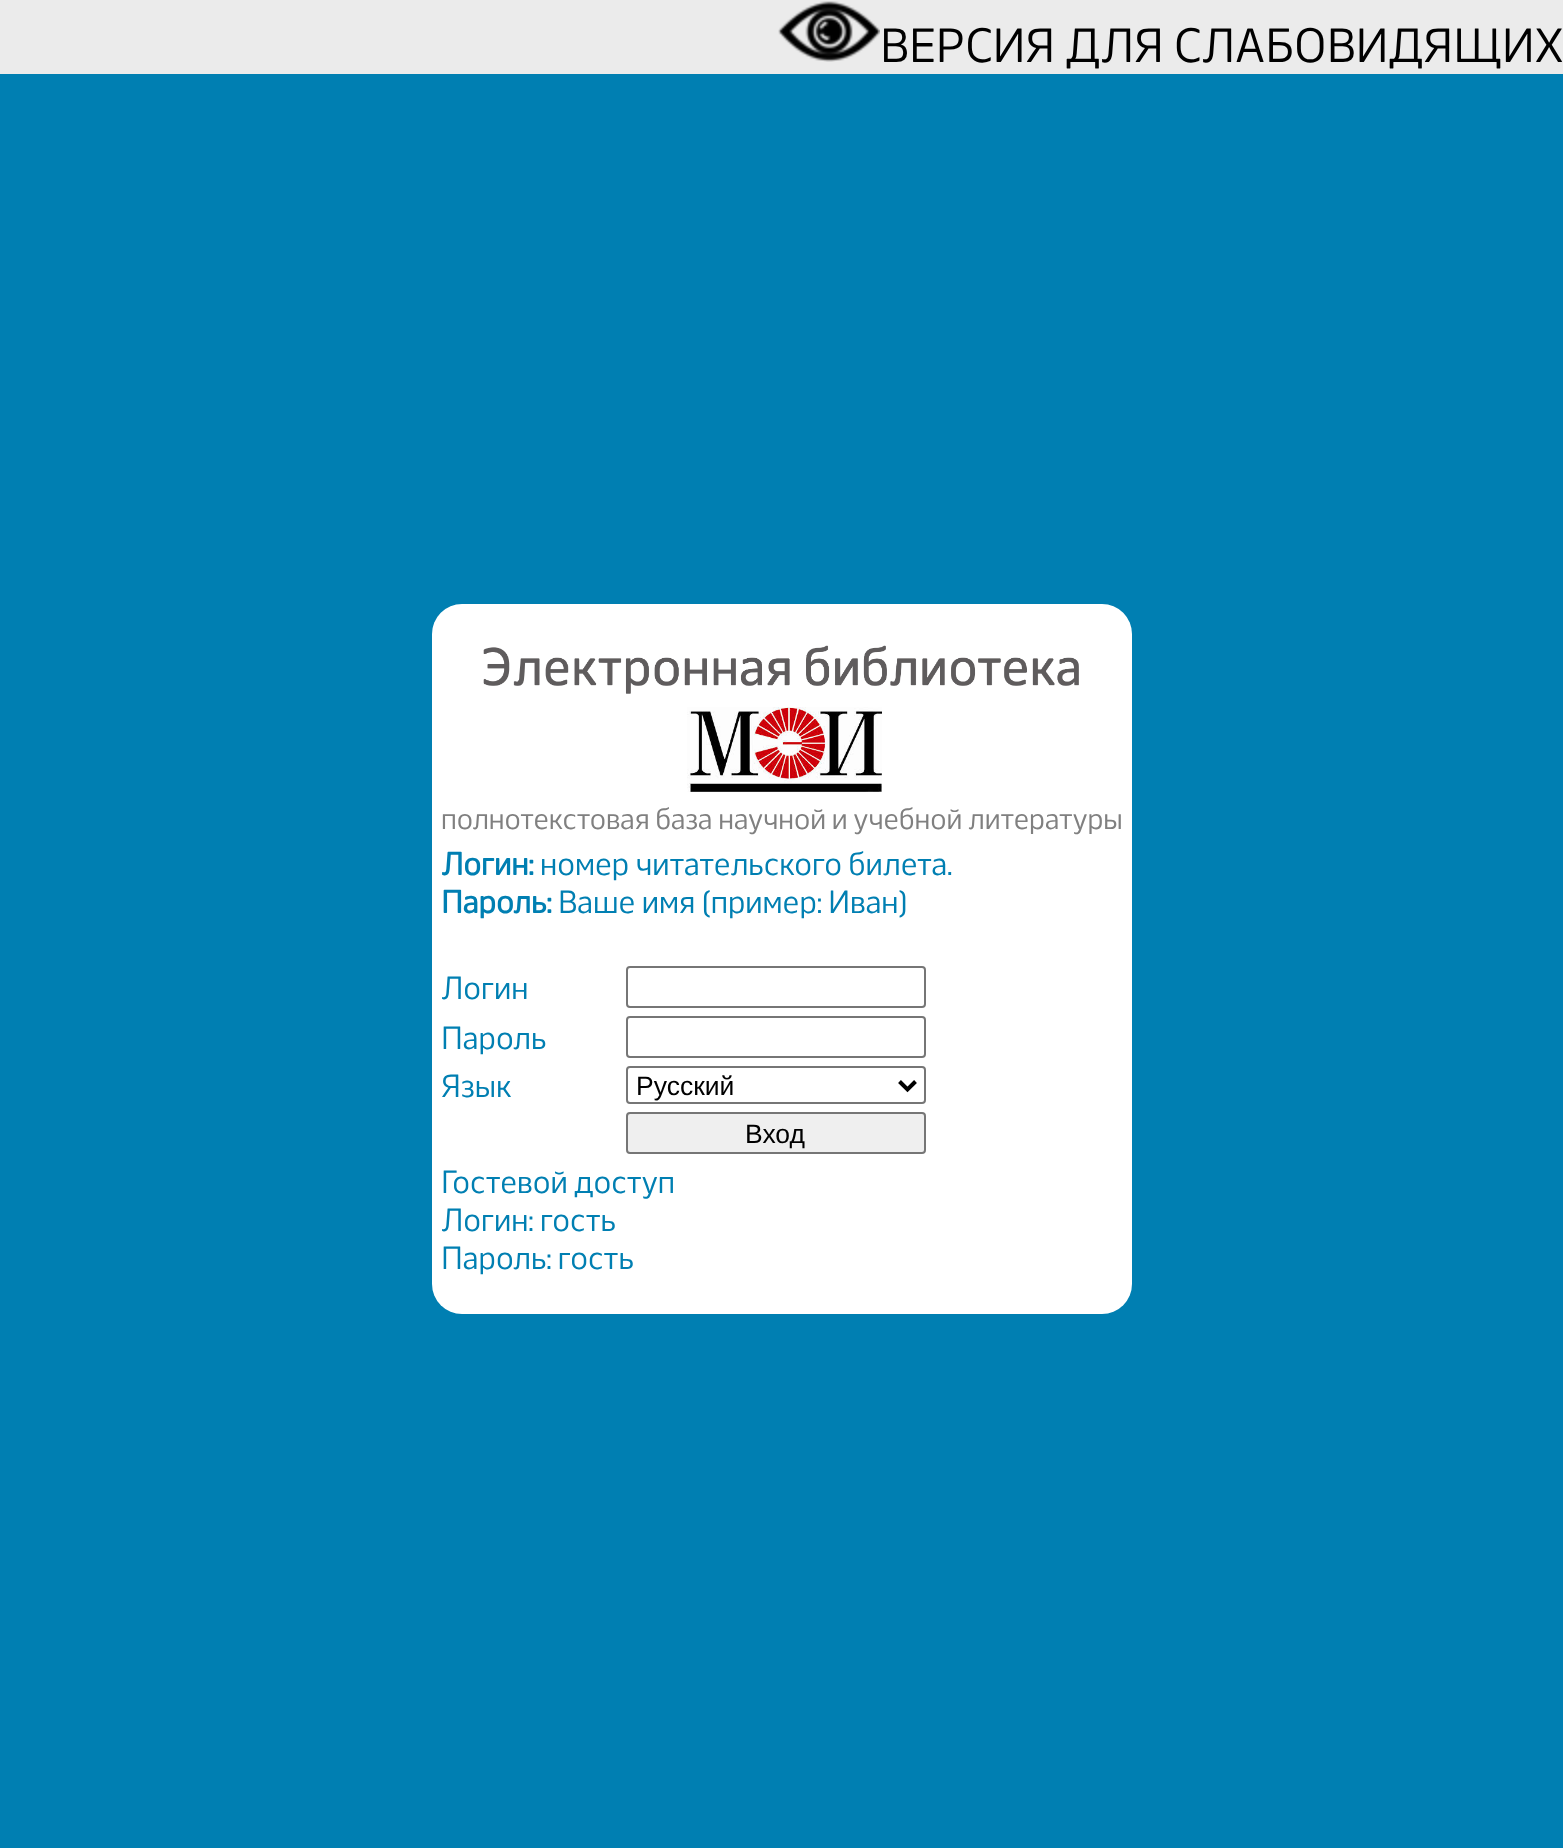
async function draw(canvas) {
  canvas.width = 1563;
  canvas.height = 1848;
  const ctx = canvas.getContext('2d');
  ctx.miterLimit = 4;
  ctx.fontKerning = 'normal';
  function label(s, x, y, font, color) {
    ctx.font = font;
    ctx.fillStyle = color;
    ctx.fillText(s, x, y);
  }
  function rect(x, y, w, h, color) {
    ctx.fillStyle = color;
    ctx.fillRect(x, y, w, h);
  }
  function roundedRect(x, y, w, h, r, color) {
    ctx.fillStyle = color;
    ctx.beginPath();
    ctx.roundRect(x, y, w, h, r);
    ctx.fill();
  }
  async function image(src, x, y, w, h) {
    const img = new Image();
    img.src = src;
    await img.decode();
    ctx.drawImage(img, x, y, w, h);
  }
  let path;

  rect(0, 0, 1563, 1848, '#007fb2');
  rect(0, 0, 1563, 74, '#ebebeb');
  await image('assets/img1.png', 778, 1, 102, 61);
  label('ВЕРСИЯ ДЛЯ СЛАБОВИДЯЩИХ', 880, 62, '48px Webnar', '#000');
  roundedRect(432, 604, 700, 710, 30, '#fff');
  await image('assets/img2.png', 483, 645, 596, 49);
  await image('assets/img3.png', 687, 707, 195, 85);
  label('полнотекстовая база научной и учебной литературы', 441, 829, '29.3px Webnar', '#808080');
  label('Логин:', 441, 875, 'bold 32px Webnar', '#007fb2');
  label('номер читательского билета.', 540, 875, '32px Webnar', '#007fb2');
  label('Пароль:', 441, 913, 'bold 32px Webnar', '#007fb2');
  label('Ваше имя (пример: Иван)', 558, 913, '32px Webnar', '#007fb2');
  label('Логин', 441, 999, '32px Webnar', '#007fb2');
  ctx.beginPath();
  ctx.roundRect(627, 967, 298, 40, 3);
  ctx.strokeStyle = '#767676';
  ctx.lineWidth = 2;
  ctx.stroke();
  label('Пароль', 441, 1049, '32px Webnar', '#007fb2');
  ctx.beginPath();
  ctx.roundRect(627, 1017, 298, 40, 3);
  ctx.stroke();
  label('Язык', 441, 1097, '32px Webnar', '#007fb2');
  ctx.beginPath();
  ctx.roundRect(627, 1067, 298, 36, 3);
  ctx.stroke();
  path = new Path2D('M899.5 1081.5L907.5 1089.5L915.5 1081.5');
  ctx.strokeStyle = '#000';
  ctx.lineWidth = 4;
  ctx.stroke(path);
  label('Русский', 636, 1095, '26.5px Liberation Sans', '#000');
  ctx.fillStyle = '#efefef';
  ctx.beginPath();
  ctx.roundRect(627, 1113, 298, 40, 3);
  ctx.fill();
  ctx.strokeStyle = '#767676';
  ctx.lineWidth = 2;
  ctx.stroke();
  label('Вход', 745, 1143, '26.5px Liberation Sans', '#000');
  label('Гостевой доступ', 441, 1193, '32px Webnar', '#007fb2');
  label('Логин: гость', 441, 1231, '32px Webnar', '#007fb2');
  label('Пароль: гость', 441, 1269, '32px Webnar', '#007fb2');
}

draw(document.querySelector('canvas'));
